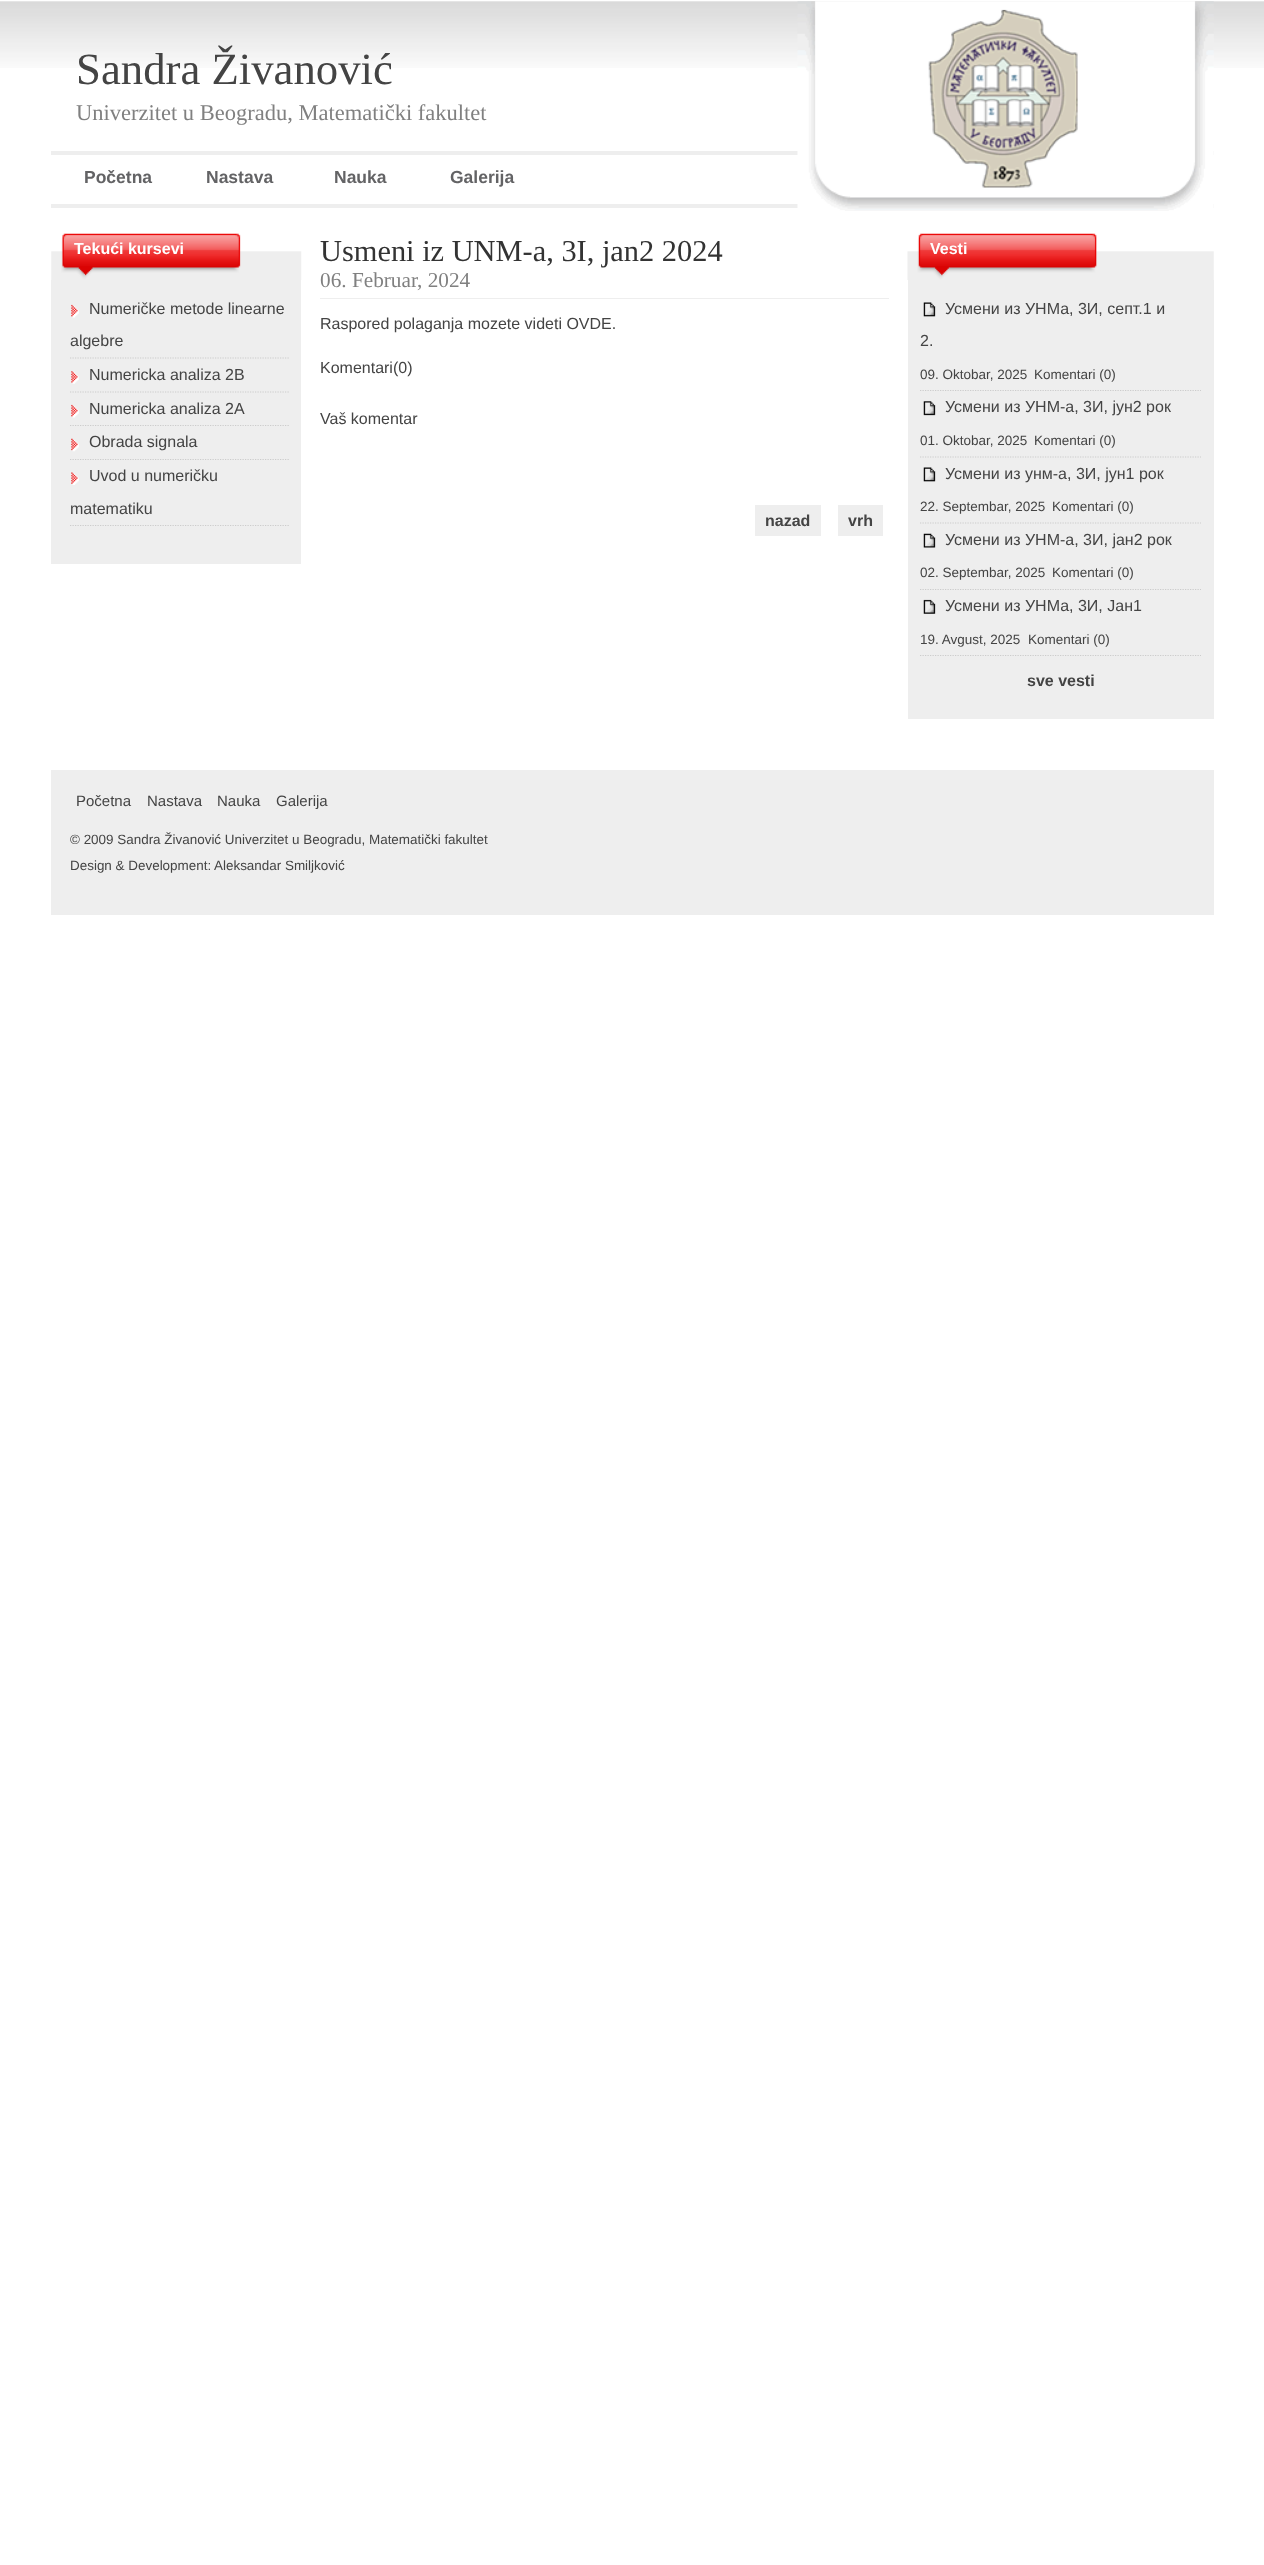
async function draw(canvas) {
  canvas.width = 1264;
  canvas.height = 2565;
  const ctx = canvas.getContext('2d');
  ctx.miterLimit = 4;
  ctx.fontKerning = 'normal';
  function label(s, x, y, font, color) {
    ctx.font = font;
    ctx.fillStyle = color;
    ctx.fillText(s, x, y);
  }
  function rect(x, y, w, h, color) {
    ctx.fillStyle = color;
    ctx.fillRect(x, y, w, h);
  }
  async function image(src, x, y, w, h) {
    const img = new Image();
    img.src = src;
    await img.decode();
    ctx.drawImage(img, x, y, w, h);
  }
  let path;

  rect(0, 0, 1264, 2565, '#fff');
  await image('assets/img1.png', 0, 1, 1264, 67);
  label('Sandra Živanović', 76, 84, '44.75px Liberation Serif', '#444');
  label('Univerzitet u Beogradu, Matematički fakultet', 76, 120, '22.5px Liberation Serif', '#808080');
  rect(51, 151, 1163, 4, '#eee');
  rect(51, 204, 1163, 4, '#eee');
  await image('assets/img2.png', 797, 1, 417, 210);
  label('Početna', 84, 183, 'bold 17.5px Liberation Sans', '#636365');
  label('Nastava', 206, 183, 'bold 17.5px Liberation Sans', '#636365');
  label('Nauka', 334, 183, 'bold 17.5px Liberation Sans', '#636365');
  label('Galerija', 450, 183, 'bold 17.5px Liberation Sans', '#636365');
  await image('assets/img3.png', 51, 233, 251, 47);
  label('Tekući kursevi', 74, 254, 'bold 16px Liberation Sans', '#fff');
  rect(51, 280, 250, 284, '#eee');
  path = new Path2D('M70 358H289');
  ctx.strokeStyle = '#ccc';
  ctx.lineWidth = 1.2;
  ctx.setLineDash([1.25, 1.25]);
  ctx.stroke(path);
  await image('assets/img4.png', 71, 304, 8, 14);
  label('Numeričke metode linearne', 89, 314, '16px Liberation Sans', '#444');
  label('algebre', 70, 346, '16px Liberation Sans', '#444');
  path = new Path2D('M70 392H289');
  ctx.stroke(path);
  await image('assets/img5.png', 71, 371, 8, 13);
  label('Numericka analiza 2B', 89, 380, '16px Liberation Sans', '#444');
  path = new Path2D('M70 425.5H289');
  ctx.stroke(path);
  await image('assets/img4.png', 71, 404, 8, 14);
  label('Numericka analiza 2A', 89, 414, '16px Liberation Sans', '#444');
  path = new Path2D('M70 459.5H289');
  ctx.stroke(path);
  await image('assets/img6.png', 71, 438, 8, 14);
  label('Obrada signala', 89, 447, '16px Liberation Sans', '#444');
  path = new Path2D('M70 525.5H289');
  ctx.stroke(path);
  await image('assets/img7.png', 71, 472, 8, 13);
  label('Uvod u numeričku', 89, 481, '16px Liberation Sans', '#444');
  label('matematiku', 70, 514, '16px Liberation Sans', '#444');
  rect(320, 298, 569, 1, '#eee');
  label('Usmeni iz UNM-a, 3I, jan2 2024', 320, 261, '30.4px Liberation Serif', '#333');
  label('06. Februar, 2024', 320, 287, '21.25px Liberation Serif', '#808080');
  label('Raspored polaganja mozete videti OVDE.', 320, 329, '16px Liberation Sans', '#444');
  label('Komentari(0)', 320, 373, '16px Liberation Sans', '#444');
  label('Vaš komentar', 320, 424, '16px Liberation Sans', '#444');
  rect(755, 505, 66, 31, '#eee');
  label('nazad', 765, 526, 'bold 16px Liberation Sans', '#444');
  rect(838, 505, 45, 31, '#eee');
  label('vrh', 848, 526, 'bold 16px Liberation Sans', '#444');
  await image('assets/img8.png', 907, 233, 307, 47);
  label('Vesti', 930, 254, 'bold 16px Liberation Sans', '#fff');
  rect(908, 280, 306, 439, '#eee');
  path = new Path2D('M920 390.5H1201');
  ctx.stroke(path);
  await image('assets/img9.png', 923, 302, 13, 15);
  label('Усмени из УНМа, 3И, септ.1 и', 945, 314, '16px Liberation Sans', '#444');
  label('2.', 920, 346, '16px Liberation Sans', '#444');
  label('09. Oktobar, 2025', 920, 379, '13.5px Liberation Sans', '#444');
  label('Komentari (0)', 1034, 379, '13.5px Liberation Sans', '#444');
  path = new Path2D('M920 457H1201');
  ctx.stroke(path);
  await image('assets/img10.png', 923, 401, 13, 15);
  label('Усмени из УНМ-а, 3И, јун2 рок', 945, 412, '16px Liberation Sans', '#444');
  label('01. Oktobar, 2025', 920, 445, '13.5px Liberation Sans', '#444');
  label('Komentari (0)', 1034, 445, '13.5px Liberation Sans', '#444');
  path = new Path2D('M920 523H1201');
  ctx.stroke(path);
  await image('assets/img9.png', 923, 467, 13, 15);
  label('Усмени из унм-а, 3И, јун1 рок', 945, 479, '16px Liberation Sans', '#444');
  label('22. Septembar, 2025', 920, 511, '13.5px Liberation Sans', '#444');
  label('Komentari (0)', 1052, 511, '13.5px Liberation Sans', '#444');
  path = new Path2D('M920 589.5H1201');
  ctx.stroke(path);
  await image('assets/img11.png', 923, 533, 13, 15);
  label('Усмени из УНМ-а, 3И, јан2 рок', 945, 545, '16px Liberation Sans', '#444');
  label('02. Septembar, 2025', 920, 577, '13.5px Liberation Sans', '#444');
  label('Komentari (0)', 1052, 577, '13.5px Liberation Sans', '#444');
  path = new Path2D('M920 655.5H1201');
  ctx.stroke(path);
  await image('assets/img12.png', 923, 599, 13, 15);
  label('Усмени из УНМа, 3И, Јан1', 945, 611, '16px Liberation Sans', '#444');
  label('19. Avgust, 2025', 920, 644, '13.5px Liberation Sans', '#444');
  label('Komentari (0)', 1028, 644, '13.5px Liberation Sans', '#444');
  label('sve vesti', 1027, 686, 'bold 16px Liberation Sans', '#444');
  rect(51, 770, 1163, 145, '#eee');
  label('Početna', 76, 806, '15px Liberation Sans', '#444');
  label('Nastava', 147, 806, '15px Liberation Sans', '#444');
  label('Nauka', 217, 806, '15px Liberation Sans', '#444');
  label('Galerija', 276, 806, '15px Liberation Sans', '#444');
  label('© 2009 Sandra Živanović Univerzitet u Beogradu, Matematički fakultet', 70, 844, '13.45px Liberation Sans', '#444');
  label('Design & Development:', 70, 870, '13.45px Liberation Sans', '#444');
  label('Aleksandar Smiljković', 214, 870, '13.45px Liberation Sans', '#444');
}

draw(document.querySelector('canvas'));
